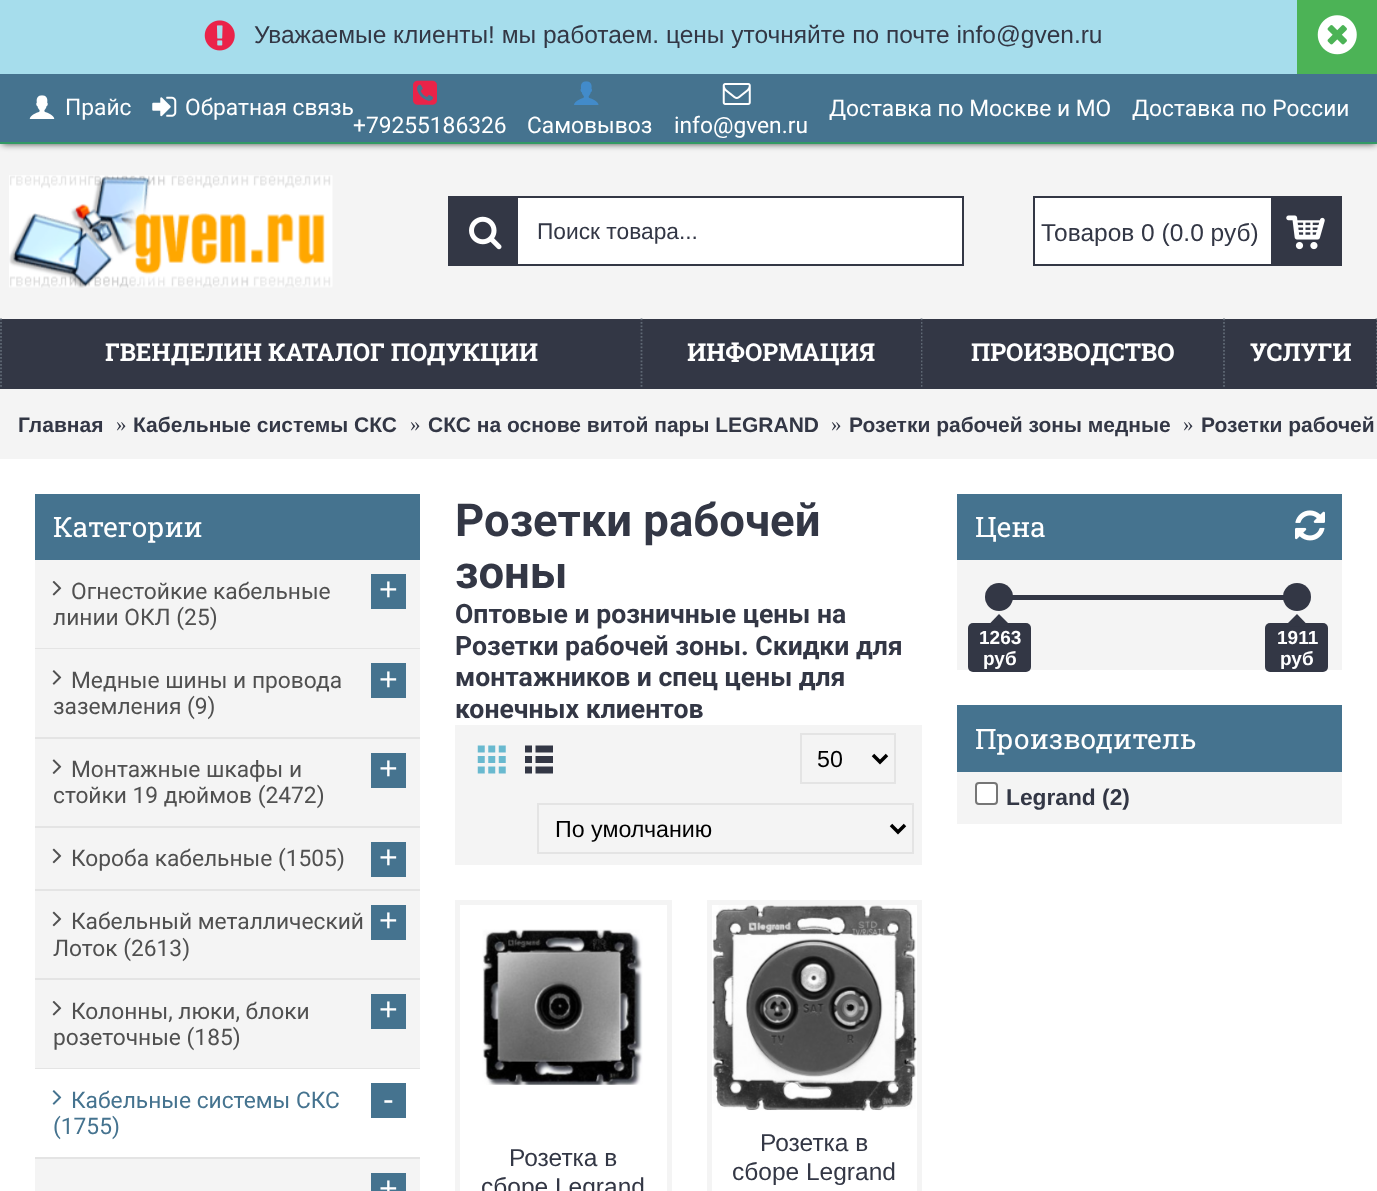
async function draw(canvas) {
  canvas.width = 1377;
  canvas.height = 1191;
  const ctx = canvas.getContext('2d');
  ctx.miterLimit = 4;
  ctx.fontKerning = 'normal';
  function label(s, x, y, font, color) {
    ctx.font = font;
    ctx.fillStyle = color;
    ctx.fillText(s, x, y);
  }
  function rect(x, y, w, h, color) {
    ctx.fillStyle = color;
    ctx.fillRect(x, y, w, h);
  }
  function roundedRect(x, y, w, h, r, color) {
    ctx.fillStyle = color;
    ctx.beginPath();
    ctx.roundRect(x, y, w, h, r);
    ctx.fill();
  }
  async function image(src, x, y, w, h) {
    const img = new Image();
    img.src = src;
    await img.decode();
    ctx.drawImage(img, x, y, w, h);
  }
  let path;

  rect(0, 0, 1377, 1191, '#fff');
  rect(0, 144, 1377, 175, '#f4f4f4');
  ctx.fillStyle = '#000000b3';
  ctx.filter = 'blur(3.5px)';
  ctx.beginPath();
  ctx.rect(2, 77, 1374, 67);
  ctx.fill();
  ctx.filter = 'none';
  rect(0, 0, 1297, 74, '#a6ddec');
  await image('assets/img1.png', 204, 20, 31, 31);
  label('Уважаемые клиенты! мы работаем. цены уточняйте по почте info@gven.ru', 254, 43, '24.5px Liberation Sans', '#333745');
  rect(1297, 0, 80, 74, '#4cb356');
  await image('assets/img2.png', 1317, 15, 40, 40);
  rect(0, 74, 1377, 68, '#45738f');
  rect(0, 142, 1377, 2, '#339965');
  await image('assets/img3.png', 29, 95, 26, 24);
  label('Прайс', 65, 115, '22.75px Roboto', '#fff');
  await image('assets/img4.png', 152, 96, 25, 21);
  label('Обратная связь', 185, 115, '22.75px Roboto', '#fff');
  label('Доставка по Москве и МО', 829, 116, '22.75px Roboto', '#fff');
  label('Доставка по России', 1132, 116, '22.75px Roboto', '#fff');
  await image('assets/img5.png', 413, 80, 24, 25);
  label('+79255186326', 353, 133, '22.75px Roboto', '#fff');
  await image('assets/img6.png', 574, 81, 25, 24);
  label('Самовывоз', 527, 133, '22.75px Roboto', '#fff');
  await image('assets/img7.png', 722, 83, 29, 22);
  label('info@gven.ru', 674, 133, '22.75px Roboto', '#fff');
  await image('assets/img8.png', 9, 175, 324, 113);
  rect(518, 198, 444, 66, '#fff');
  ctx.strokeStyle = '#333745';
  ctx.lineWidth = 2;
  ctx.strokeRect(449, 197, 514, 68);
  rect(450, 198, 68, 66, '#333745');
  await image('assets/img9.png', 469, 216, 33, 34);
  label('Поиск товара...', 537, 239, '22.75px Liberation Sans', '#333745');
  rect(1035, 198, 236, 66, '#fff');
  ctx.strokeRect(1034, 197, 307, 68);
  label('Товаров 0 (0.0 руб)', 1041, 241, '24.5px Liberation Sans', '#333745');
  rect(1271, 198, 69, 66, '#333745');
  await image('assets/img10.png', 1286, 215, 39, 35);
  rect(0, 319, 1377, 70, '#333745');
  path = new Path2D('M1376.5 318.5V388.5');
  ctx.strokeStyle = '#5f6874';
  ctx.lineWidth = 1.8;
  ctx.setLineDash([1.75, 1.75]);
  ctx.stroke(path);
  path = new Path2D('M1 318.5V388.5');
  ctx.stroke(path);
  label('ГВЕНДЕЛИН КАТАЛОГ ПОДУКЦИИ', 105, 361, 'bold 24.5px Roboto Slab', '#fff');
  path = new Path2D('M921.5 318.5V388.5');
  ctx.stroke(path);
  rect(920, 319, 1, 68, '#333745');
  path = new Path2D('M641.5 318.5V388.5');
  ctx.stroke(path);
  label('ИНФОРМАЦИЯ', 687, 361, 'bold 24.5px Roboto Slab', '#fff');
  label('ПРОИЗВОДСТВО', 971, 361, 'bold 24.5px Roboto Slab', '#fff');
  rect(1375, 319, 1, 68, '#333745');
  path = new Path2D('M1224 318.5V388.5');
  ctx.stroke(path);
  label('УСЛУГИ', 1250, 361, 'bold 24.5px Roboto Slab', '#fff');
  rect(0, 389, 1377, 70, '#f4f4f4');
  label('Главная', 18, 432, 'bold 21px Liberation Sans', '#333745');
  label('»', 116, 431, '21px Liberation Serif', '#333745');
  label('Кабельные системы СКС', 133, 432, 'bold 21px Liberation Sans', '#333745');
  label('»', 410, 431, '21px Liberation Serif', '#333745');
  label('СКС на основе витой пары LEGRAND', 428, 432, 'bold 21px Liberation Sans', '#333745');
  label('»', 831, 431, '21px Liberation Serif', '#333745');
  label('Розетки рабочей зоны медные', 849, 432, 'bold 21px Liberation Sans', '#333745');
  label('»', 1183, 431, '21px Liberation Serif', '#333745');
  label('Розетки рабочей', 1201, 432, 'bold 21px Liberation Sans', '#333745');
  rect(35, 560, 385, 631, '#f4f4f4');
  rect(35, 494, 385, 66, '#45738f');
  label('Категории', 53, 537, '28px Roboto Slab', '#fff');
  rect(35, 648, 385, 1, '#e4e4e4');
  await image('assets/img11.png', 52, 581, 10, 15);
  label('Огнестойкие кабельные', 71, 599, '22.75px Roboto', '#505050');
  rect(371, 574, 35, 35, '#45738f');
  label('+', 379, 600, '32px Liberation Sans', '#fff');
  label('линии ОКЛ (25)', 53, 625, '22.75px Roboto', '#505050');
  rect(35, 737, 385, 2, '#e4e4e4');
  await image('assets/img12.png', 52, 670, 10, 15);
  label('Медные шины и провода', 71, 688, '22.75px Roboto', '#505050');
  rect(371, 663, 35, 35, '#45738f');
  label('+', 379, 690, '32px Liberation Sans', '#fff');
  label('заземления (9)', 53, 714, '22.75px Roboto', '#505050');
  rect(35, 826, 385, 2, '#e4e4e4');
  await image('assets/img13.png', 52, 759, 10, 15);
  label('Монтажные шкафы и', 71, 777, '22.75px Roboto', '#505050');
  rect(371, 753, 35, 35, '#45738f');
  label('+', 379, 779, '32px Liberation Sans', '#fff');
  label('стойки 19 дюймов (2472)', 53, 803, '22.75px Roboto', '#505050');
  rect(35, 889, 385, 2, '#e4e4e4');
  await image('assets/img14.png', 52, 848, 10, 16);
  label('Короба кабельные (1505)', 71, 866, '22.75px Roboto', '#505050');
  rect(371, 842, 35, 35, '#45738f');
  label('+', 379, 868, '32px Liberation Sans', '#fff');
  rect(35, 978, 385, 2, '#e4e4e4');
  await image('assets/img14.png', 52, 911, 10, 16);
  label('Кабельный металлический', 71, 929, '22.75px Roboto', '#505050');
  rect(371, 905, 35, 35, '#45738f');
  label('+', 379, 931, '32px Liberation Sans', '#fff');
  label('Лоток (2613)', 53, 956, '22.75px Roboto', '#505050');
  rect(35, 1068, 385, 1, '#e4e4e4');
  await image('assets/img11.png', 52, 1001, 10, 15);
  label('Колонны, люки, блоки', 71, 1019, '22.75px Roboto', '#505050');
  rect(371, 994, 35, 35, '#45738f');
  label('+', 379, 1020, '32px Liberation Sans', '#fff');
  label('розеточные (185)', 53, 1045, '22.75px Roboto', '#505050');
  rect(35, 1069, 385, 88, '#fff');
  rect(35, 1157, 385, 2, '#e4e4e4');
  await image('assets/img15.png', 52, 1090, 10, 15);
  label('Кабельные системы СКС', 71, 1108, '22.75px Roboto', '#45738f');
  rect(371, 1083, 35, 35, '#45738f');
  label('-', 383, 1110, '32px Liberation Sans', '#fff');
  label('(1755)', 53, 1134, '22.75px Roboto', '#45738f');
  rect(371, 1173, 35, 18, '#45738f');
  label('+', 379, 1199, '32px Liberation Sans', '#fff');
  label('Розетки рабочей', 455, 536, 'bold 45.5px Roboto', '#333745');
  label('зоны', 455, 588, 'bold 45.5px Roboto', '#333745');
  label('Оптовые и розничные цены на', 455, 623, 'bold 26.6px Roboto', '#333745');
  label('Розетки рабочей зоны. Скидки для', 455, 655, 'bold 26.6px Roboto', '#333745');
  label('монтажников и спец цены для', 455, 686, 'bold 26.6px Roboto', '#333745');
  label('конечных клиентов', 455, 718, 'bold 26.6px Roboto', '#333745');
  rect(455, 725, 467, 140, '#f4f4f4');
  await image('assets/img16.png', 477, 745, 29, 29);
  await image('assets/img17.png', 525, 745, 28, 29);
  ctx.strokeStyle = '#e4e4e4';
  ctx.lineWidth = 2;
  ctx.setLineDash([]);
  ctx.strokeRect(801, 734, 94, 49);
  path = new Path2D('M873 755L880 762L887 755');
  ctx.strokeStyle = '#000';
  ctx.lineWidth = 3.5;
  ctx.stroke(path);
  label('50', 817, 767, '23.25px Liberation Sans', '#000');
  ctx.strokeStyle = '#e4e4e4';
  ctx.lineWidth = 2;
  ctx.strokeRect(538, 804, 375, 49);
  path = new Path2D('M891 825L898 832L905 825');
  ctx.strokeStyle = '#000';
  ctx.lineWidth = 3.5;
  ctx.stroke(path);
  label('По умолчанию', 555, 837, '23.25px Liberation Sans', '#000');
  ctx.strokeStyle = '#f4f4f4';
  ctx.lineWidth = 5;
  ctx.strokeRect(457.5, 902.5, 212, 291);
  await image('assets/img18.png', 482, 929, 161, 156);
  label('Розетка в', 509, 1166, '24.5px Liberation Sans', '#333745');
  label('сборе Legrand', 481, 1195, '24.5px Liberation Sans', '#333745');
  ctx.strokeRect(709.5, 902.5, 210, 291);
  await image('assets/img19.png', 712, 905, 205, 206);
  label('Розетка в', 760, 1151, '24.5px Liberation Sans', '#333745');
  label('сборе Legrand', 732, 1180, '24.5px Liberation Sans', '#333745');
  rect(957, 494, 385, 66, '#45738f');
  await image('assets/img20.png', 1295, 510, 30, 31);
  rect(957, 560, 385, 110, '#f4f4f4');
  label('Цена', 975, 537, '28px Roboto Slab', '#fff');
  rect(1012, 595, 272, 5, '#333745');
  ctx.beginPath();
  ctx.arc(999, 597, 14, 0, 2 * Math.PI);
  ctx.fill();
  roundedRect(968, 623, 63, 49, 5, '#333745');
  path = new Path2D('M1011.5 626.5H987L999 614Z');
  ctx.fill(path);
  label('1263', 979, 644, 'bold 19px Liberation Sans', '#fff');
  label('руб', 983, 665, 'bold 19px Liberation Sans', '#fff');
  ctx.fillStyle = '#333745';
  ctx.beginPath();
  ctx.arc(1297, 597, 14, 0, 2 * Math.PI);
  ctx.fill();
  roundedRect(1265, 623, 63, 49, 5, '#333745');
  path = new Path2D('M1309 626.5H1284.5L1297 614Z');
  ctx.fill(path);
  label('1911', 1277, 644, 'bold 19px Liberation Sans', '#fff');
  label('руб', 1280, 665, 'bold 19px Liberation Sans', '#fff');
  rect(957, 772, 385, 52, '#f4f4f4');
  rect(957, 705, 385, 67, '#45738f');
  label('Производитель', 975, 749, '28px Roboto Slab', '#fff');
  ctx.beginPath();
  ctx.roundRect(976, 783, 21, 21, 3);
  ctx.fill();
  ctx.strokeStyle = '#767676';
  ctx.lineWidth = 2;
  ctx.stroke();
  label('Legrand (2)', 1006, 805, 'bold 22.75px Liberation Sans', '#333745');
}

draw(document.querySelector('canvas'));
